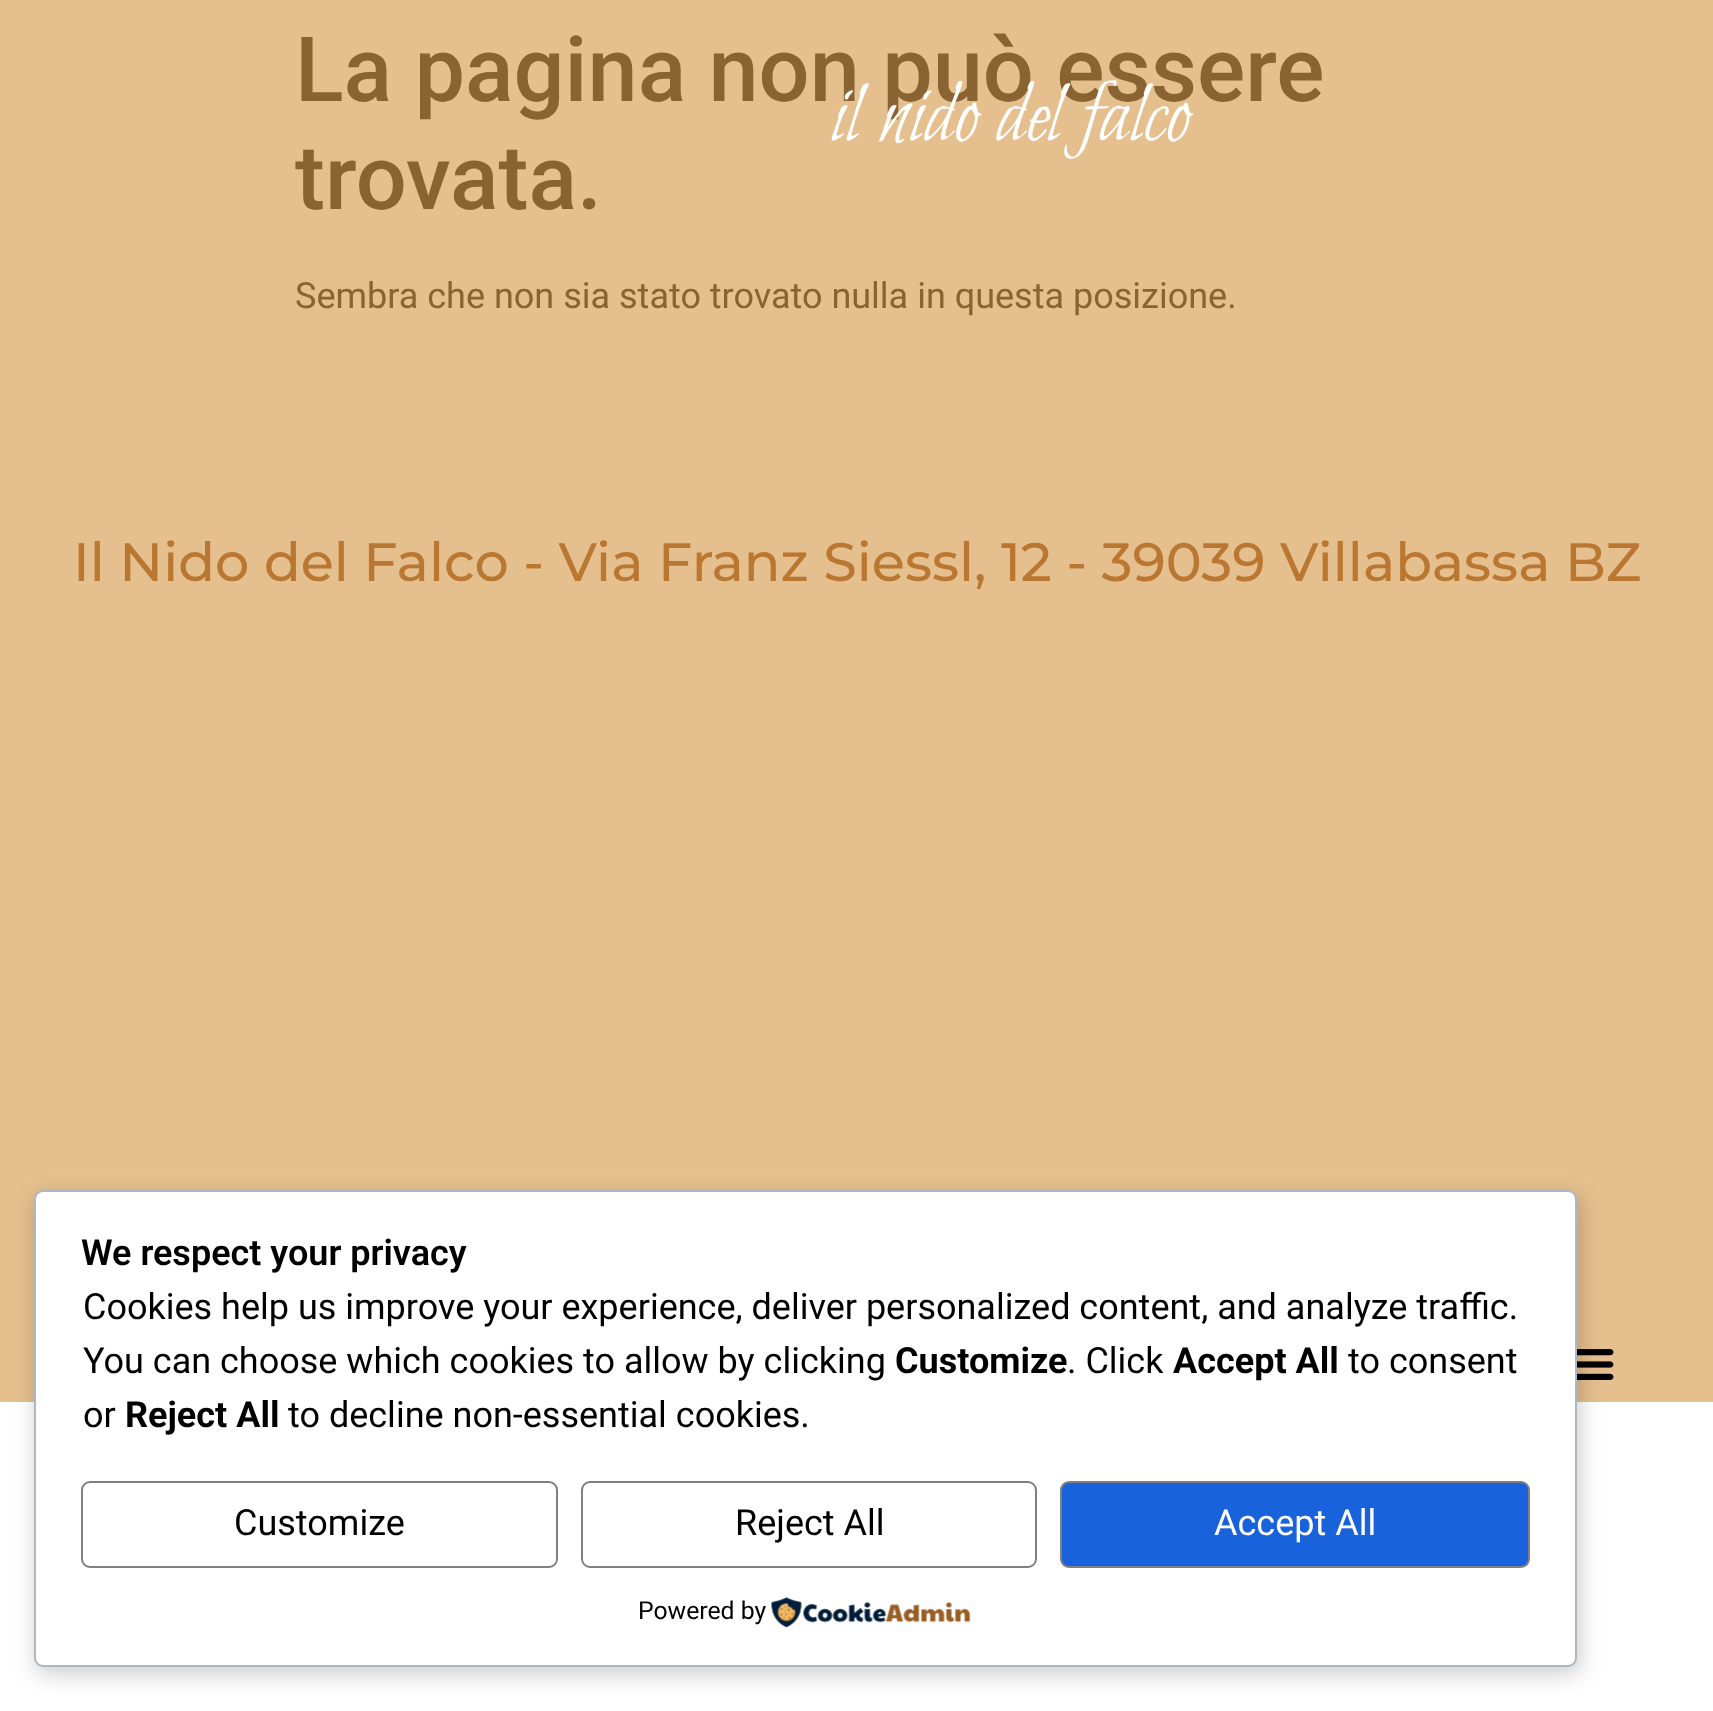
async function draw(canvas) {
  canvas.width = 1713;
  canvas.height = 1711;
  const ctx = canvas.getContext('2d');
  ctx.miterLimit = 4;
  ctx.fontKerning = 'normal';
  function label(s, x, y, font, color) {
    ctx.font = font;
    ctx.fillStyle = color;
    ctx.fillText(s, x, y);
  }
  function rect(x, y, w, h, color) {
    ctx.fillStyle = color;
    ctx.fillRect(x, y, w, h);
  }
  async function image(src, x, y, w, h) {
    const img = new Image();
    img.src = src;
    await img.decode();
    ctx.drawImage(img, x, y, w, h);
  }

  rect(0, 0, 1713, 1711, '#fff');
  rect(0, 0, 1713, 1402, '#e5bf8e');
  label('La pagina non può essere', 295, 101, '500 90px Roboto', '#896332');
  label('trovata.', 295, 209, '500 90px Roboto', '#896332');
  label('Sembra che non sia stato trovato nulla in questa posizione.', 295, 308, '36px Roboto', '#896332');
  label('il nido del falco', 830, 140, '90px Bilbo', '#fff');
  await image('assets/img1.png', 1577, 1349, 37, 31);
  label('Il Nido del Falco - Via Franz Siessl, 12 - 39039 Villabassa BZ', 73, 581, '500 54px Montserrat', '#b97731');
  ctx.fillStyle = '#00000033';
  ctx.filter = 'blur(11px)';
  ctx.beginPath();
  ctx.roundRect(36, 1197, 1544, 477, 9);
  ctx.fill();
  ctx.filter = 'none';
  ctx.fillStyle = '#fff';
  ctx.beginPath();
  ctx.roundRect(35, 1191, 1541, 475, 8);
  ctx.fill();
  ctx.strokeStyle = '#abb8c3';
  ctx.lineWidth = 2;
  ctx.stroke();
  label('We respect your privacy', 81, 1265, '600 36px Roboto', '#000');
  label('Cookies help us improve your experience, deliver personalized content, and analyze traffic.', 83, 1319, '36px Roboto', '#000');
  label('You can choose which cookies to allow by clicking', 83, 1373, '36px Roboto', '#000');
  label('Customize', 895, 1373, 'bold 36px Roboto', '#000');
  label('. Click', 1067, 1373, '36px Roboto', '#000');
  label('Accept All', 1173, 1373, 'bold 36px Roboto', '#000');
  label('to consent', 1348, 1373, '36px Roboto', '#000');
  label('or', 83, 1427, '36px Roboto', '#000');
  label('Reject All', 125, 1427, 'bold 36px Roboto', '#000');
  label('to decline non-essential cookies.', 288, 1427, '36px Roboto', '#000');
  ctx.beginPath();
  ctx.roundRect(82, 1482, 475, 85, 8);
  ctx.strokeStyle = '#808080';
  ctx.stroke();
  label('Customize', 234, 1535, '36px Roboto', '#000');
  ctx.beginPath();
  ctx.roundRect(582, 1482, 454, 85, 8);
  ctx.stroke();
  label('Reject All', 735, 1535, '36px Roboto', '#000');
  ctx.fillStyle = '#1863dc';
  ctx.beginPath();
  ctx.roundRect(1061, 1482, 468, 85, 8);
  ctx.fill();
  ctx.stroke();
  label('Accept All', 1214, 1535, '36px Roboto', '#fff');
  label('Powered by', 638, 1619, '24.75px Roboto', '#000');
  await image('assets/img2.png', 771, 1597, 200, 31);
}

draw(document.querySelector('canvas'));
